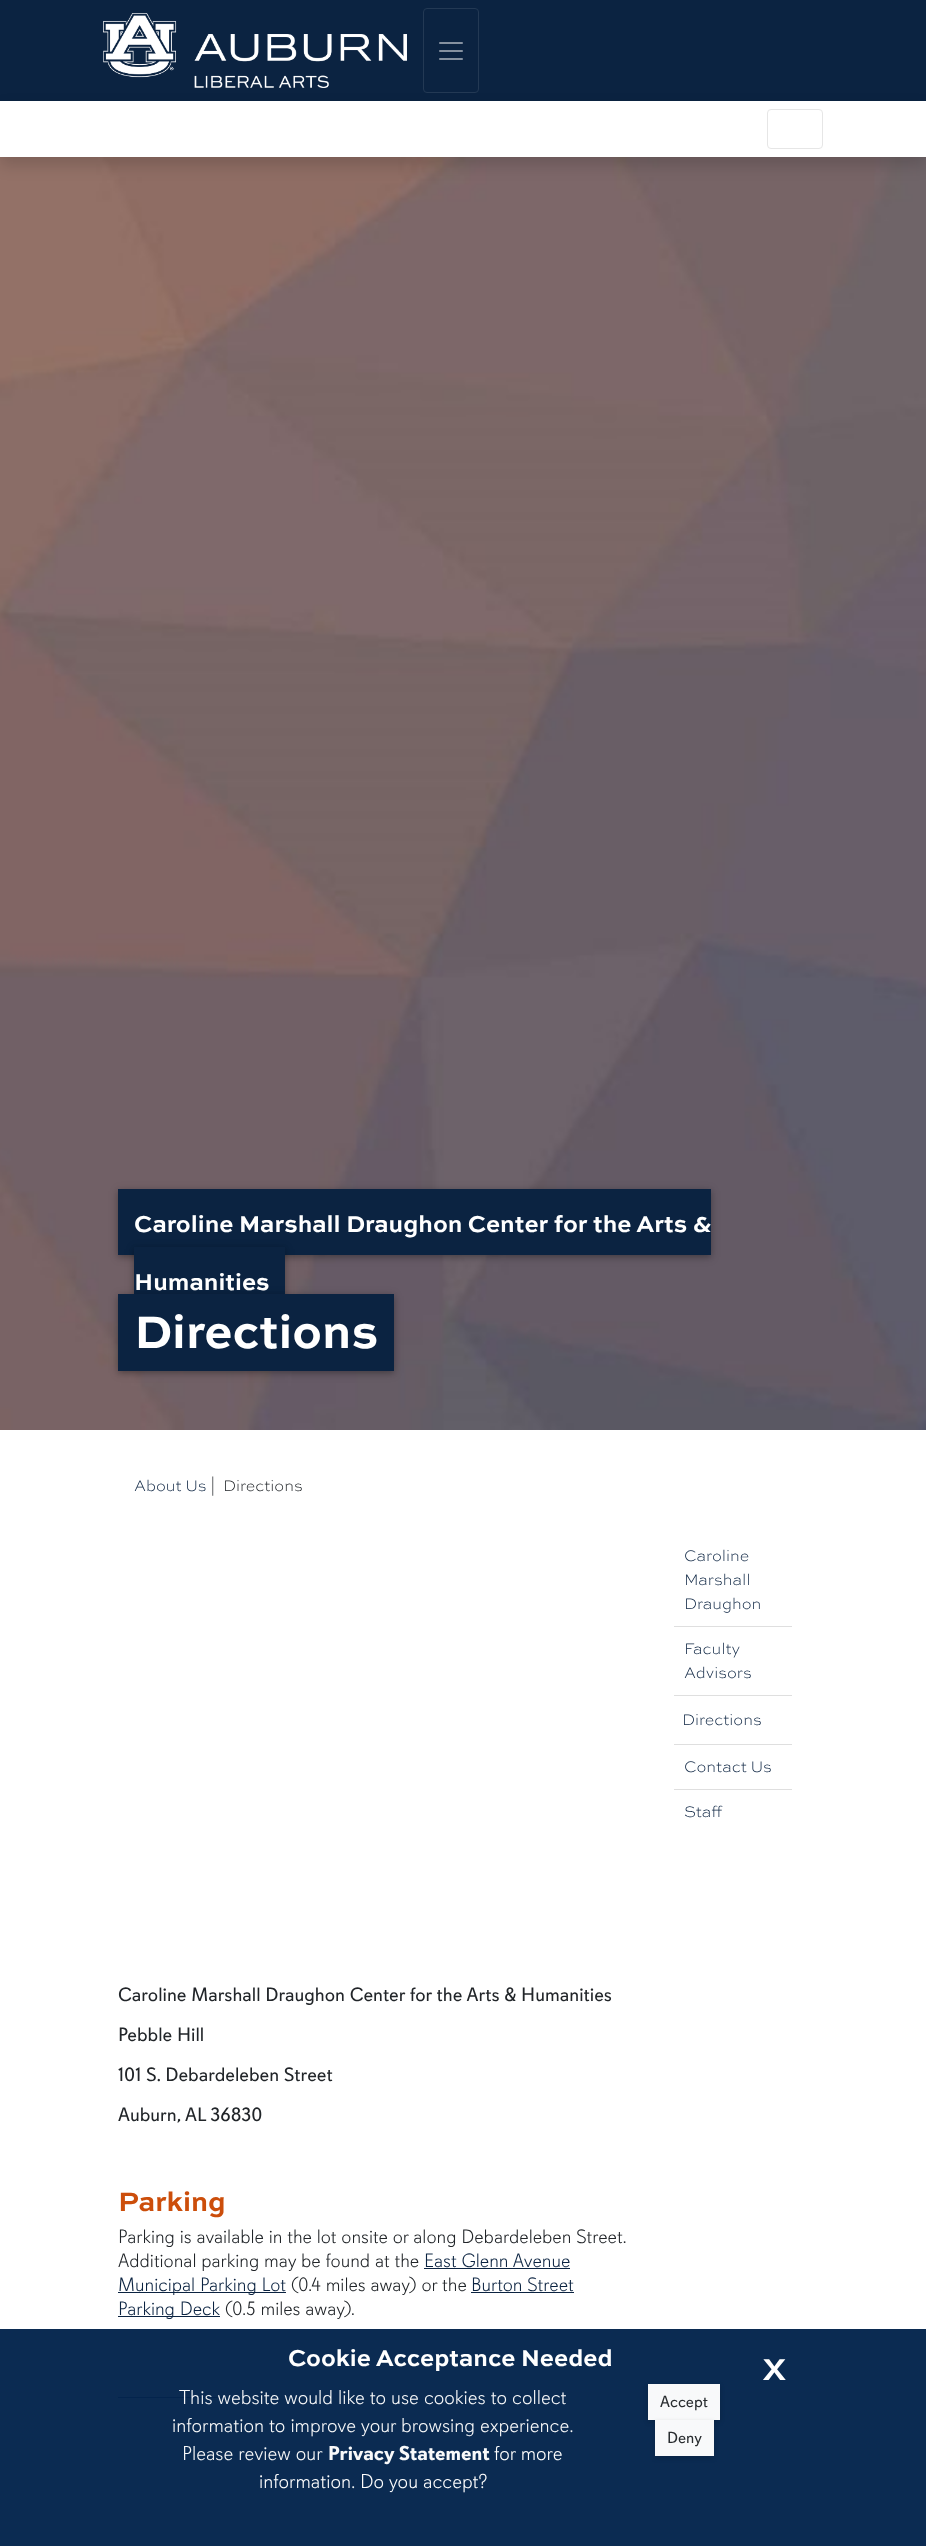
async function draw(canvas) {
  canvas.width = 926;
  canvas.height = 2546;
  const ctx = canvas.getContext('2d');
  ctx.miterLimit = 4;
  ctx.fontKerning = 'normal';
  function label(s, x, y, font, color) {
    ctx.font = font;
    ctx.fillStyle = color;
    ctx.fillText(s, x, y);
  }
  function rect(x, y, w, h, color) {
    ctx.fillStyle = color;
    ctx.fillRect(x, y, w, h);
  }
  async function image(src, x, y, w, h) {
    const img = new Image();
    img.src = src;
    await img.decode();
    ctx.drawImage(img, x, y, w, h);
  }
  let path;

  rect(0, 0, 926, 2546, '#fff');
  rect(0, 2329, 926, 217, '#0b2b52');
  rect(0, 0, 926, 101, '#0b2341');
  await image('assets/img1.png', 103, 13, 304, 75);
  ctx.beginPath();
  ctx.roundRect(423.5, 8.5, 55, 84, 3.5);
  ctx.strokeStyle = '#233954';
  ctx.stroke();
  await image('assets/img2.png', 439, 42, 24, 18);
  await image('assets/img3.png', 0, 157, 926, 1273);
  ctx.save();
  path = new Path2D('M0 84H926V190H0ZM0 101H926V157H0Z');
  ctx.clip(path, 'evenodd');
  ctx.fillStyle = '#00000026';
  ctx.filter = 'blur(8px)';
  ctx.beginPath();
  ctx.rect(0, 109, 926, 56);
  ctx.fill();
  ctx.filter = 'none';
  ctx.restore();
  ctx.beginPath();
  ctx.roundRect(767.5, 109.5, 55, 39, 3.5);
  ctx.strokeStyle = '#e6e6e6';
  ctx.stroke();
  ctx.fillStyle = '#00000033';
  ctx.filter = 'blur(5px)';
  ctx.beginPath();
  ctx.rect(118, 1191, 593, 66);
  ctx.fill();
  ctx.filter = 'none';
  ctx.fillStyle = '#00000029';
  ctx.filter = 'blur(2.5px)';
  ctx.beginPath();
  ctx.rect(118, 1191, 593, 66);
  ctx.fill();
  ctx.filter = 'none';
  rect(118, 1189, 593, 66, '#0b2341');
  ctx.fillStyle = '#00000033';
  ctx.filter = 'blur(5px)';
  ctx.beginPath();
  ctx.rect(134, 1249, 151, 66);
  ctx.fill();
  ctx.filter = 'none';
  label('Caroline Marshall Draughon Center for the Arts &', 134, 1232, 'bold 24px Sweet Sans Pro', '#fff');
  ctx.fillStyle = '#00000029';
  ctx.filter = 'blur(2.5px)';
  ctx.beginPath();
  ctx.rect(134, 1249, 151, 66);
  ctx.fill();
  ctx.filter = 'none';
  rect(134, 1247, 151, 47, '#0b2341');
  label('Humanities', 134, 1290, 'bold 24px Sweet Sans Pro', '#fff');
  ctx.fillStyle = '#00000033';
  ctx.filter = 'blur(5px)';
  ctx.beginPath();
  ctx.rect(118, 1296, 276, 77);
  ctx.fill();
  ctx.filter = 'none';
  ctx.fillStyle = '#00000029';
  ctx.filter = 'blur(2.5px)';
  ctx.beginPath();
  ctx.rect(118, 1296, 276, 77);
  ctx.fill();
  ctx.filter = 'none';
  rect(118, 1294, 276, 77, '#0b2341');
  label('Directions', 134, 1348, 'bold 48px Sweet Sans Pro', '#fff');
  label('About Us', 134, 1491, '300 16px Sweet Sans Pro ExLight', '#0b2341');
  label('|', 210, 1491, '300 16px Sweet Sans Pro ExLight', '#212529');
  label('Directions', 223, 1491, '300 16px Sweet Sans Pro ExLight', '#212529');
  rect(674, 1626, 118, 1, '#dfdfdf');
  label('Caroline', 684, 1561, '300 16px Sweet Sans Pro ExLight', '#0b2341');
  label('Marshall', 684, 1585, '300 16px Sweet Sans Pro ExLight', '#0b2341');
  label('Draughon', 684, 1609, '300 16px Sweet Sans Pro ExLight', '#0b2341');
  rect(674, 1695, 118, 1, '#dfdfdf');
  label('Faculty', 684, 1654, '300 16px Sweet Sans Pro ExLight', '#0b2341');
  label('Advisors', 684, 1678, '300 16px Sweet Sans Pro ExLight', '#0b2341');
  rect(674, 1744, 118, 1, '#dfdfdf');
  label('Directions', 682, 1725, '300 16px Sweet Sans Pro ExLight', '#0b2341');
  rect(674, 1789, 118, 1, '#dfdfdf');
  label('Contact Us', 684, 1772, '300 16px Sweet Sans Pro ExLight', '#0b2341');
  label('Staff', 684, 1817, '300 16px Sweet Sans Pro ExLight', '#0b2341');
  label('Caroline Marshall Draughon Center for the Arts & Humanities', 118, 2001, '19.2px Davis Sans', '#212529');
  label('Pebble Hill', 118, 2041, '19.2px Davis Sans', '#212529');
  label('101 S. Debardeleben Street', 118, 2081, '19.2px Davis Sans', '#212529');
  label('Auburn, AL 36830', 118, 2121, '19.2px Davis Sans', '#212529');
  label('Parking', 118, 2211, 'bold 28px Sweet Sans Pro', '#cc4e0b');
  label('Parking is available in the lot onsite or along Debardeleben Street.', 118, 2243, '300 19.2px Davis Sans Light', '#212529');
  label('Additional parking may be found at the', 118, 2267, '300 19.2px Davis Sans Light', '#212529');
  label('East Glenn Avenue', 424, 2267, '300 19.2px Davis Sans Light', '#0b2341');
  rect(424, 2268, 146, 1, '#0b2341');
  rect(118, 2292, 168, 1, '#0b2341');
  label('Municipal Parking Lot', 118, 2291, '300 19.2px Davis Sans Light', '#0b2341');
  label('(0.4 miles away) or the', 291, 2291, '300 19.2px Davis Sans Light', '#212529');
  label('Burton Street', 471, 2291, '300 19.2px Davis Sans Light', '#0b2341');
  rect(471, 2292, 103, 1, '#0b2341');
  rect(118, 2316, 102, 1, '#0b2341');
  label('Parking Deck', 118, 2315, '300 19.2px Davis Sans Light', '#0b2341');
  label('(0.5 miles away).', 225, 2315, '300 19.2px Davis Sans Light', '#212529');
  rect(118, 2397, 110, 1, '#03244d');
  label('Cookie Acceptance Needed', 288, 2366, 'bold 24px Sweet Sans Pro', '#fff');
  label('x', 762, 2380, '500 43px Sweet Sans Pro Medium', '#fff');
  label('This website would like to use cookies to collect', 179, 2404, '300 20px Davis Sans Light', '#f8f9fa');
  label('information to improve your browsing experience.', 172, 2432, '300 20px Davis Sans Light', '#f8f9fa');
  label('Please review our', 182, 2460, '300 20px Davis Sans Light', '#f8f9fa');
  label('Privacy Statement', 328, 2460, 'bold 20px Davis Sans', '#f8f9fa');
  label('for more', 494, 2460, '300 20px Davis Sans Light', '#fff');
  label('information. Do you accept?', 259, 2488, '300 20px Davis Sans Light', '#fff');
  ctx.fillStyle = '#08080829';
  ctx.filter = 'blur(2.5px)';
  ctx.beginPath();
  ctx.rect(648, 2386, 72, 36);
  ctx.fill();
  ctx.filter = 'none';
  rect(648, 2384, 72, 36, '#f8f9fa');
  label('Accept', 660, 2407, '16px Davis Sans', '#282c2f');
  ctx.fillStyle = '#08080829';
  ctx.filter = 'blur(2.5px)';
  ctx.beginPath();
  ctx.rect(655, 2422, 59, 36);
  ctx.fill();
  ctx.filter = 'none';
  rect(655, 2420, 59, 36, '#f8f9fa');
  label('Deny', 667, 2443, '16px Davis Sans', '#282c2f');
}

draw(document.querySelector('canvas'));
